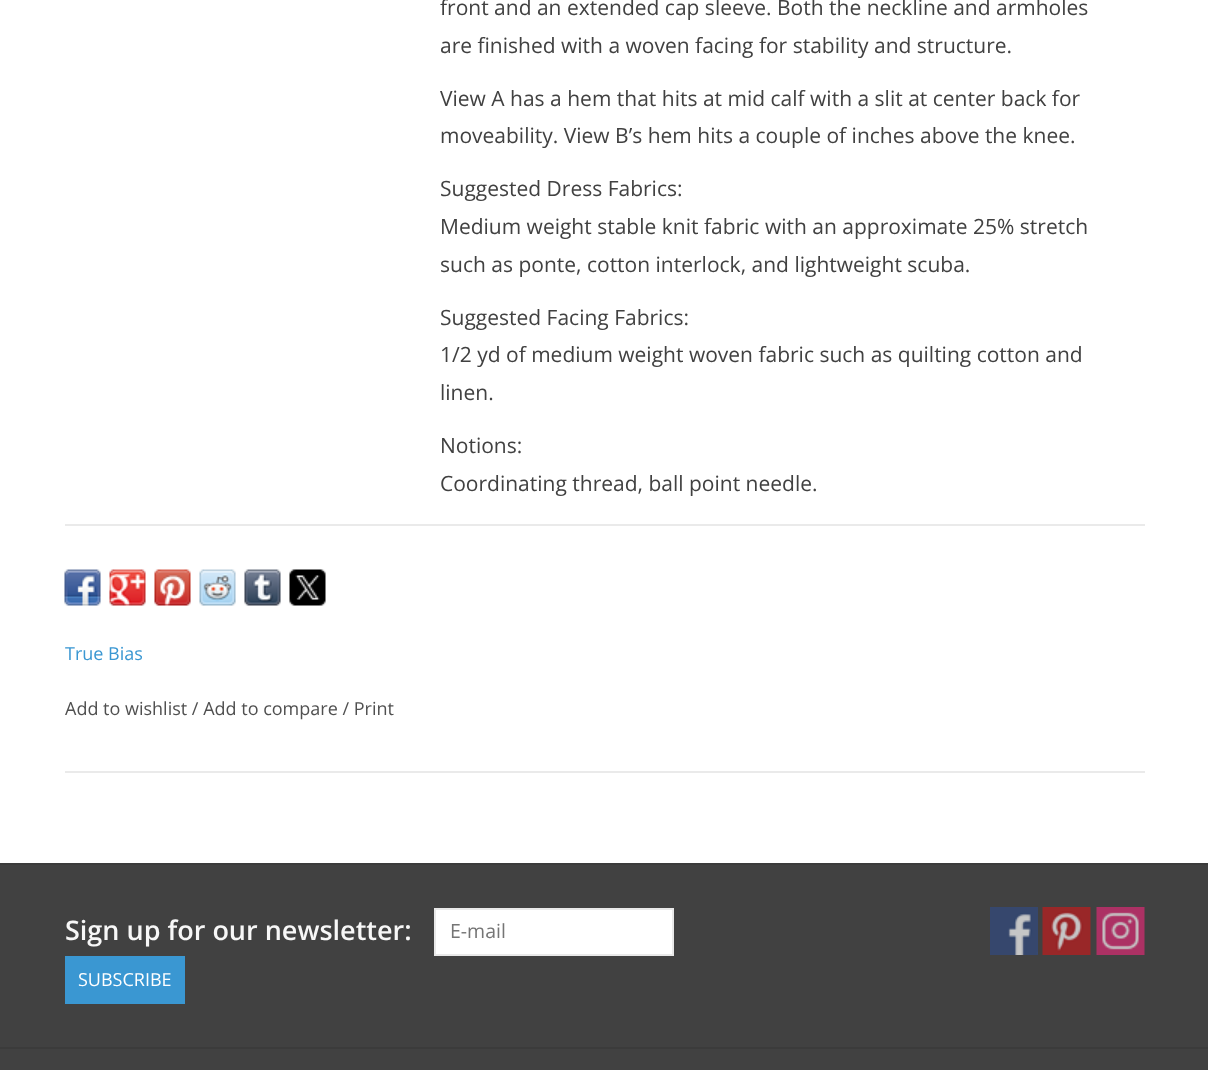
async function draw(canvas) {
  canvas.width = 1208;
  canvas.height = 1070;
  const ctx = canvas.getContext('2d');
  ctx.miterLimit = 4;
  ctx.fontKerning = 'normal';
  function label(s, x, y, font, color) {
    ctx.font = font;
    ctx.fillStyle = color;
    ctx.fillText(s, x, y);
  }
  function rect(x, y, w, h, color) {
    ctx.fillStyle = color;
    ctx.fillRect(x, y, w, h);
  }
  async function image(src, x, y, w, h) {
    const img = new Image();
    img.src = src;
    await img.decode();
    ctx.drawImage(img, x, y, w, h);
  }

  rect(0, 0, 1208, 1070, '#fff');
  label('front and an extended cap sleeve. Both the neckline and armholes', 440, 15, '21px Open Sans', '#414141');
  label('are finished with a woven facing for stability and structure.', 440, 53, '21px Open Sans', '#414141');
  label('View A has a hem that hits at mid calf with a slit at center back for', 440, 106, '21px Open Sans', '#414141');
  label('moveability. View B’s hem hits a couple of inches above the knee.', 440, 143, '21px Open Sans', '#414141');
  label('Suggested Dress Fabrics:', 440, 196, '21px Open Sans', '#414141');
  label('Medium weight stable knit fabric with an approximate 25% stretch', 440, 234, '21px Open Sans', '#414141');
  label('such as ponte, cotton interlock, and lightweight scuba.', 440, 272, '21px Open Sans', '#414141');
  label('Suggested Facing Fabrics:', 440, 325, '21px Open Sans', '#414141');
  label('1/2 yd of medium weight woven fabric such as quilting cotton and', 440, 362, '21px Open Sans', '#414141');
  label('linen.', 440, 400, '21px Open Sans', '#414141');
  label('Notions:', 440, 453, '21px Open Sans', '#414141');
  label('Coordinating thread, ball point needle.', 440, 491, '21px Open Sans', '#414141');
  rect(65, 524, 1080, 2, '#eaeaea');
  rect(65, 771, 1080, 2, '#eaeaea');
  await image('assets/img1.png', 64, 569, 37, 37);
  await image('assets/img2.png', 109, 569, 37, 37);
  await image('assets/img3.png', 154, 569, 37, 37);
  await image('assets/img4.png', 199, 569, 37, 37);
  await image('assets/img5.png', 244, 569, 37, 37);
  await image('assets/img6.png', 289, 569, 37, 37);
  label('True Bias', 65, 660, '18px Open Sans', '#3a97d2');
  label('Add to wishlist / Add to compare / Print', 65, 715, '18px Open Sans', '#505050');
  rect(0, 865, 1208, 205, '#414141');
  rect(0, 863, 1208, 2, '#3b3b3b');
  label('Sign up for our newsletter:', 65, 940, '600 27px Open Sans', '#f7f7f7');
  ctx.fillStyle = '#fff';
  ctx.beginPath();
  ctx.rect(435, 909, 238, 46);
  ctx.fill();
  ctx.strokeStyle = '#e9e9e9';
  ctx.lineWidth = 2;
  ctx.stroke();
  label('E-mail', 450, 938, '19.5px Open Sans', '#757575');
  rect(65, 956, 120, 48, '#3a97d2');
  label('SUBSCRIBE', 78, 986, '18px Open Sans', '#fff');
  await image('assets/img7.png', 990, 907, 48, 48);
  await image('assets/img8.png', 1042, 907, 49, 48);
  await image('assets/img9.png', 1096, 907, 49, 48);
  rect(0, 1047, 1208, 2, '#3b3b3b');
}

draw(document.querySelector('canvas'));
